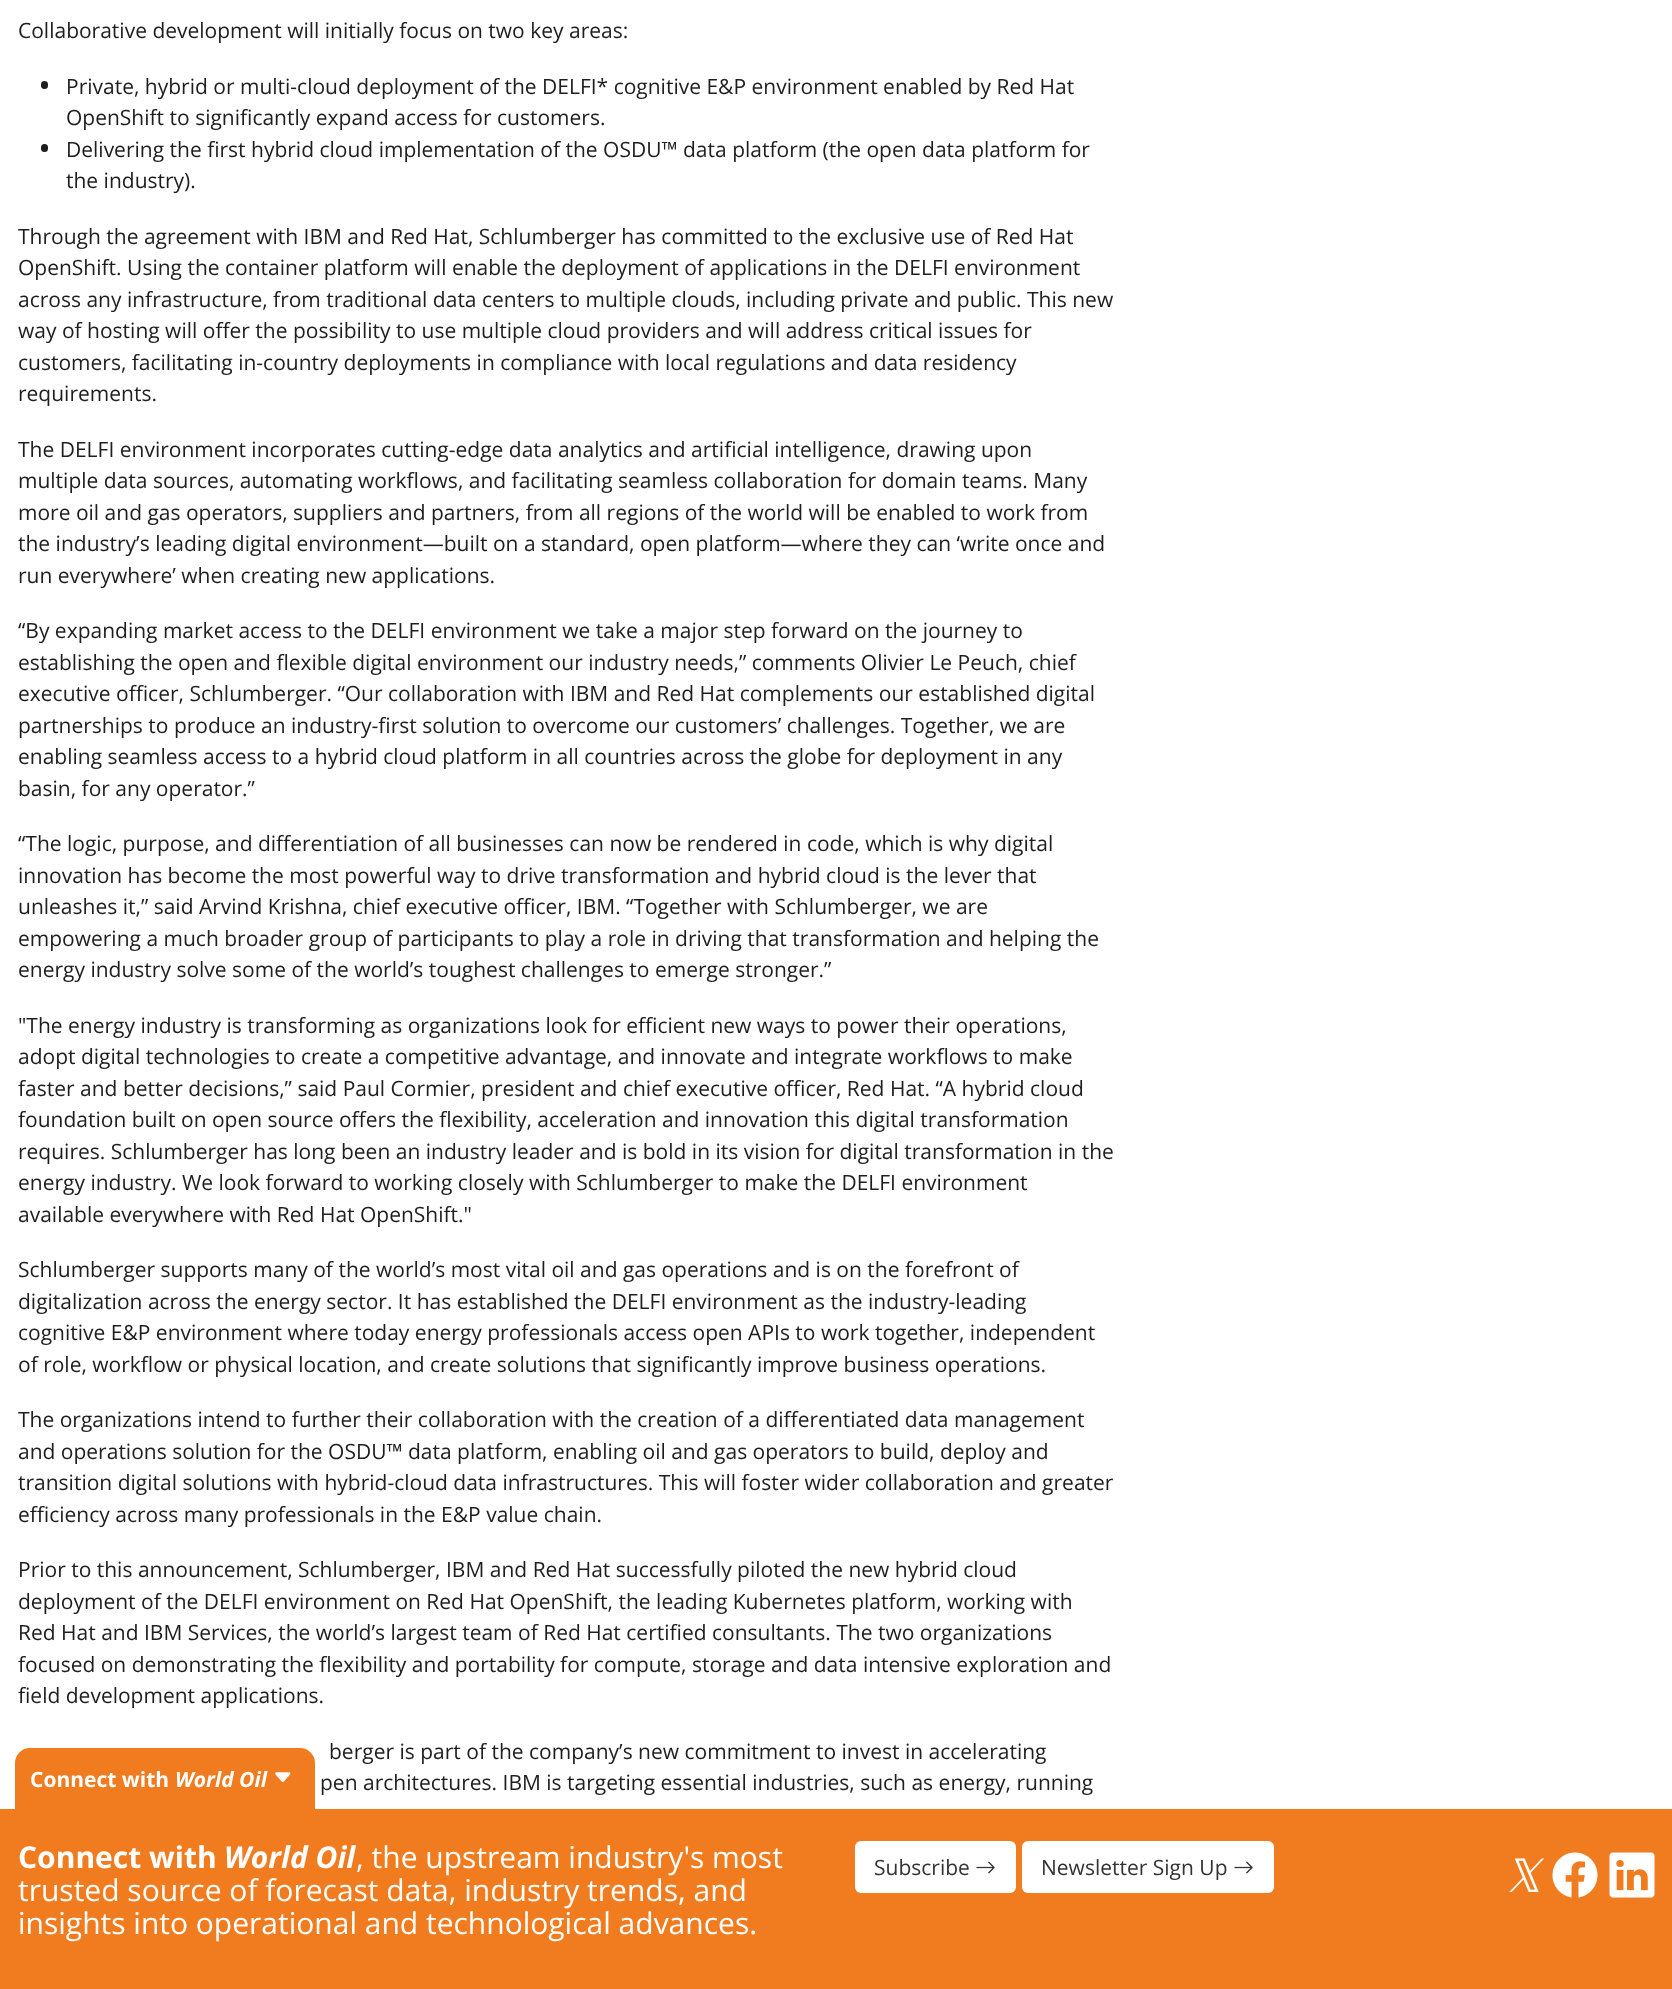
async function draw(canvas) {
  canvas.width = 1672;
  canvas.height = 1989;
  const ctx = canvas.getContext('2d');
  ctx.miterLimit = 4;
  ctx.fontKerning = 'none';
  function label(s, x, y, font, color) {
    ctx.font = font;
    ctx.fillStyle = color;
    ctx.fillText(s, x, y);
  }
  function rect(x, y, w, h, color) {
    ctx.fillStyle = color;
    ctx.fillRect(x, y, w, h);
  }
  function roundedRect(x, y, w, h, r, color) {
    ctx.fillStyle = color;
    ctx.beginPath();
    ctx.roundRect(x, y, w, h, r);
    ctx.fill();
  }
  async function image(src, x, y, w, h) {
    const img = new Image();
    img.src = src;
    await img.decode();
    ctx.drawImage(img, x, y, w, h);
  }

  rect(0, 0, 1672, 1989, '#fff');
  label('Collaborative development will initially focus on two key areas:', 18, 38, '21px Open Sans', '#1e1e1e');
  roundedRect(41, 81, 7, 8, 3.5, '#1e1e1e');
  label('Private, hybrid or multi-cloud deployment of the DELFI* cognitive E&P environment enabled by Red Hat', 66, 94, '21px Open Sans', '#1e1e1e');
  label('OpenShift to significantly expand access for customers.', 66, 125, '21px Open Sans', '#1e1e1e');
  roundedRect(41, 144, 7, 8, 3.5, '#1e1e1e');
  label('Delivering the first hybrid cloud implementation of the OSDU™ data platform (the open data platform for', 66, 157, '21px Open Sans', '#1e1e1e');
  label('the industry).', 66, 188, '21px Open Sans', '#1e1e1e');
  label('Through the agreement with IBM and Red Hat, Schlumberger has committed to the exclusive use of Red Hat', 18, 244, '21px Open Sans', '#1e1e1e');
  label('OpenShift. Using the container platform will enable the deployment of applications in the DELFI environment', 18, 275, '21px Open Sans', '#1e1e1e');
  label('across any infrastructure, from traditional data centers to multiple clouds, including private and public. This new', 18, 307, '21px Open Sans', '#1e1e1e');
  label('way of hosting will offer the possibility to use multiple cloud providers and will address critical issues for', 18, 338, '21px Open Sans', '#1e1e1e');
  label('customers, facilitating in-country deployments in compliance with local regulations and data residency', 18, 370, '21px Open Sans', '#1e1e1e');
  label('requirements.', 18, 401, '21px Open Sans', '#1e1e1e');
  label('The DELFI environment incorporates cutting-edge data analytics and artificial intelligence, drawing upon', 18, 457, '21px Open Sans', '#1e1e1e');
  label('multiple data sources, automating workflows, and facilitating seamless collaboration for domain teams. Many', 18, 488, '21px Open Sans', '#1e1e1e');
  label('more oil and gas operators, suppliers and partners, from all regions of the world will be enabled to work from', 18, 520, '21px Open Sans', '#1e1e1e');
  label('the industry’s leading digital environment—built on a standard, open platform—where they can ‘write once and', 18, 551, '21px Open Sans', '#1e1e1e');
  label('run everywhere’ when creating new applications.', 18, 583, '21px Open Sans', '#1e1e1e');
  label('“By expanding market access to the DELFI environment we take a major step forward on the journey to', 18, 638, '21px Open Sans', '#1e1e1e');
  label('establishing the open and flexible digital environment our industry needs,” comments Olivier Le Peuch, chief', 18, 670, '21px Open Sans', '#1e1e1e');
  label('executive officer, Schlumberger. “Our collaboration with IBM and Red Hat complements our established digital', 18, 701, '21px Open Sans', '#1e1e1e');
  label('partnerships to produce an industry-first solution to overcome our customers’ challenges. Together, we are', 18, 733, '21px Open Sans', '#1e1e1e');
  label('enabling seamless access to a hybrid cloud platform in all countries across the globe for deployment in any', 18, 764, '21px Open Sans', '#1e1e1e');
  label('basin, for any operator.”', 18, 796, '21px Open Sans', '#1e1e1e');
  label('“The logic, purpose, and differentiation of all businesses can now be rendered in code, which is why digital', 18, 851, '21px Open Sans', '#1e1e1e');
  label('innovation has become the most powerful way to drive transformation and hybrid cloud is the lever that', 18, 883, '21px Open Sans', '#1e1e1e');
  label('unleashes it,” said Arvind Krishna, chief executive officer, IBM. “Together with Schlumberger, we are', 18, 914, '21px Open Sans', '#1e1e1e');
  label('empowering a much broader group of participants to play a role in driving that transformation and helping the', 18, 946, '21px Open Sans', '#1e1e1e');
  label('energy industry solve some of the world’s toughest challenges to emerge stronger.”', 18, 977, '21px Open Sans', '#1e1e1e');
  label('"The energy industry is transforming as organizations look for efficient new ways to power their operations,', 18, 1033, '21px Open Sans', '#1e1e1e');
  label('adopt digital technologies to create a competitive advantage, and innovate and integrate workflows to make', 18, 1064, '21px Open Sans', '#1e1e1e');
  label('faster and better decisions,” said Paul Cormier, president and chief executive officer, Red Hat. “A hybrid cloud', 18, 1096, '21px Open Sans', '#1e1e1e');
  label('foundation built on open source offers the flexibility, acceleration and innovation this digital transformation', 18, 1127, '21px Open Sans', '#1e1e1e');
  label('requires. Schlumberger has long been an industry leader and is bold in its vision for digital transformation in the', 18, 1159, '21px Open Sans', '#1e1e1e');
  label('energy industry. We look forward to working closely with Schlumberger to make the DELFI environment', 18, 1190, '21px Open Sans', '#1e1e1e');
  label('available everywhere with Red Hat OpenShift."', 18, 1222, '21px Open Sans', '#1e1e1e');
  label('Schlumberger supports many of the world’s most vital oil and gas operations and is on the forefront of', 18, 1277, '21px Open Sans', '#1e1e1e');
  label('digitalization across the energy sector. It has established the DELFI environment as the industry-leading', 18, 1309, '21px Open Sans', '#1e1e1e');
  label('cognitive E&P environment where today energy professionals access open APIs to work together, independent', 18, 1340, '21px Open Sans', '#1e1e1e');
  label('of role, workflow or physical location, and create solutions that significantly improve business operations.', 18, 1372, '21px Open Sans', '#1e1e1e');
  label('The organizations intend to further their collaboration with the creation of a differentiated data management', 18, 1427, '21px Open Sans', '#1e1e1e');
  label('and operations solution for the OSDU™ data platform, enabling oil and gas operators to build, deploy and', 18, 1459, '21px Open Sans', '#1e1e1e');
  label('transition digital solutions with hybrid-cloud data infrastructures. This will foster wider collaboration and greater', 18, 1490, '21px Open Sans', '#1e1e1e');
  label('efficiency across many professionals in the E&P value chain.', 18, 1522, '21px Open Sans', '#1e1e1e');
  label('Prior to this announcement, Schlumberger, IBM and Red Hat successfully piloted the new hybrid cloud', 18, 1577, '21px Open Sans', '#1e1e1e');
  label('deployment of the DELFI environment on Red Hat OpenShift, the leading Kubernetes platform, working with', 18, 1609, '21px Open Sans', '#1e1e1e');
  label('Red Hat and IBM Services, the world’s largest team of Red Hat certified consultants. The two organizations', 18, 1640, '21px Open Sans', '#1e1e1e');
  label('focused on demonstrating the flexibility and portability for compute, storage and data intensive exploration and', 18, 1672, '21px Open Sans', '#1e1e1e');
  label('field development applications.', 18, 1703, '21px Open Sans', '#1e1e1e');
  label('berger is part of the company’s new commitment to invest in accelerating', 329, 1759, '21px Open Sans', '#1e1e1e');
  label('pen architectures. IBM is targeting essential industries, such as energy, running', 320, 1790, '21px Open Sans', '#1e1e1e');
  ctx.fillStyle = '#f17c20';
  ctx.beginPath();
  ctx.roundRect(15, 1748, 300, 61, [15, 15, 0, 0]);
  ctx.fill();
  label('Connect with', 30, 1787, 'bold 21px Open Sans', '#fff');
  label('World Oil', 175, 1787, 'italic bold 21px Open Sans', '#fff');
  await image('assets/img1.png', 275, 1772, 16, 10);
  rect(0, 1809, 1672, 180, '#f17c20');
  label('Connect with', 18, 1868, 'bold 30px Open Sans', '#fff');
  label('World Oil', 224, 1868, 'italic bold 30px Open Sans', '#fff');
  label(', the upstream industry\'s most', 356, 1868, '30px Open Sans', '#fff');
  label('trusted source of forecast data, industry trends, and', 18, 1901, '30px Open Sans', '#fff');
  label('insights into operational and technological advances.', 18, 1934, '30px Open Sans', '#fff');
  roundedRect(855, 1841, 161, 52, 6, '#fff');
  label('Subscribe', 874, 1875, '21px Open Sans', '#333');
  await image('assets/img2.png', 976, 1861, 19, 13);
  roundedRect(1022, 1841, 252, 52, 6, '#fff');
  label('Newsletter Sign Up', 1041, 1875, '21px Open Sans', '#333');
  await image('assets/img2.png', 1234, 1861, 19, 13);
  label('𝕏', 1504, 1892, 'italic 46px DejaVu Sans', '#fff');
  await image('assets/img3.png', 1552, 1852, 46, 46);
  await image('assets/img4.png', 1609, 1852, 46, 46);
}

draw(document.querySelector('canvas'));
